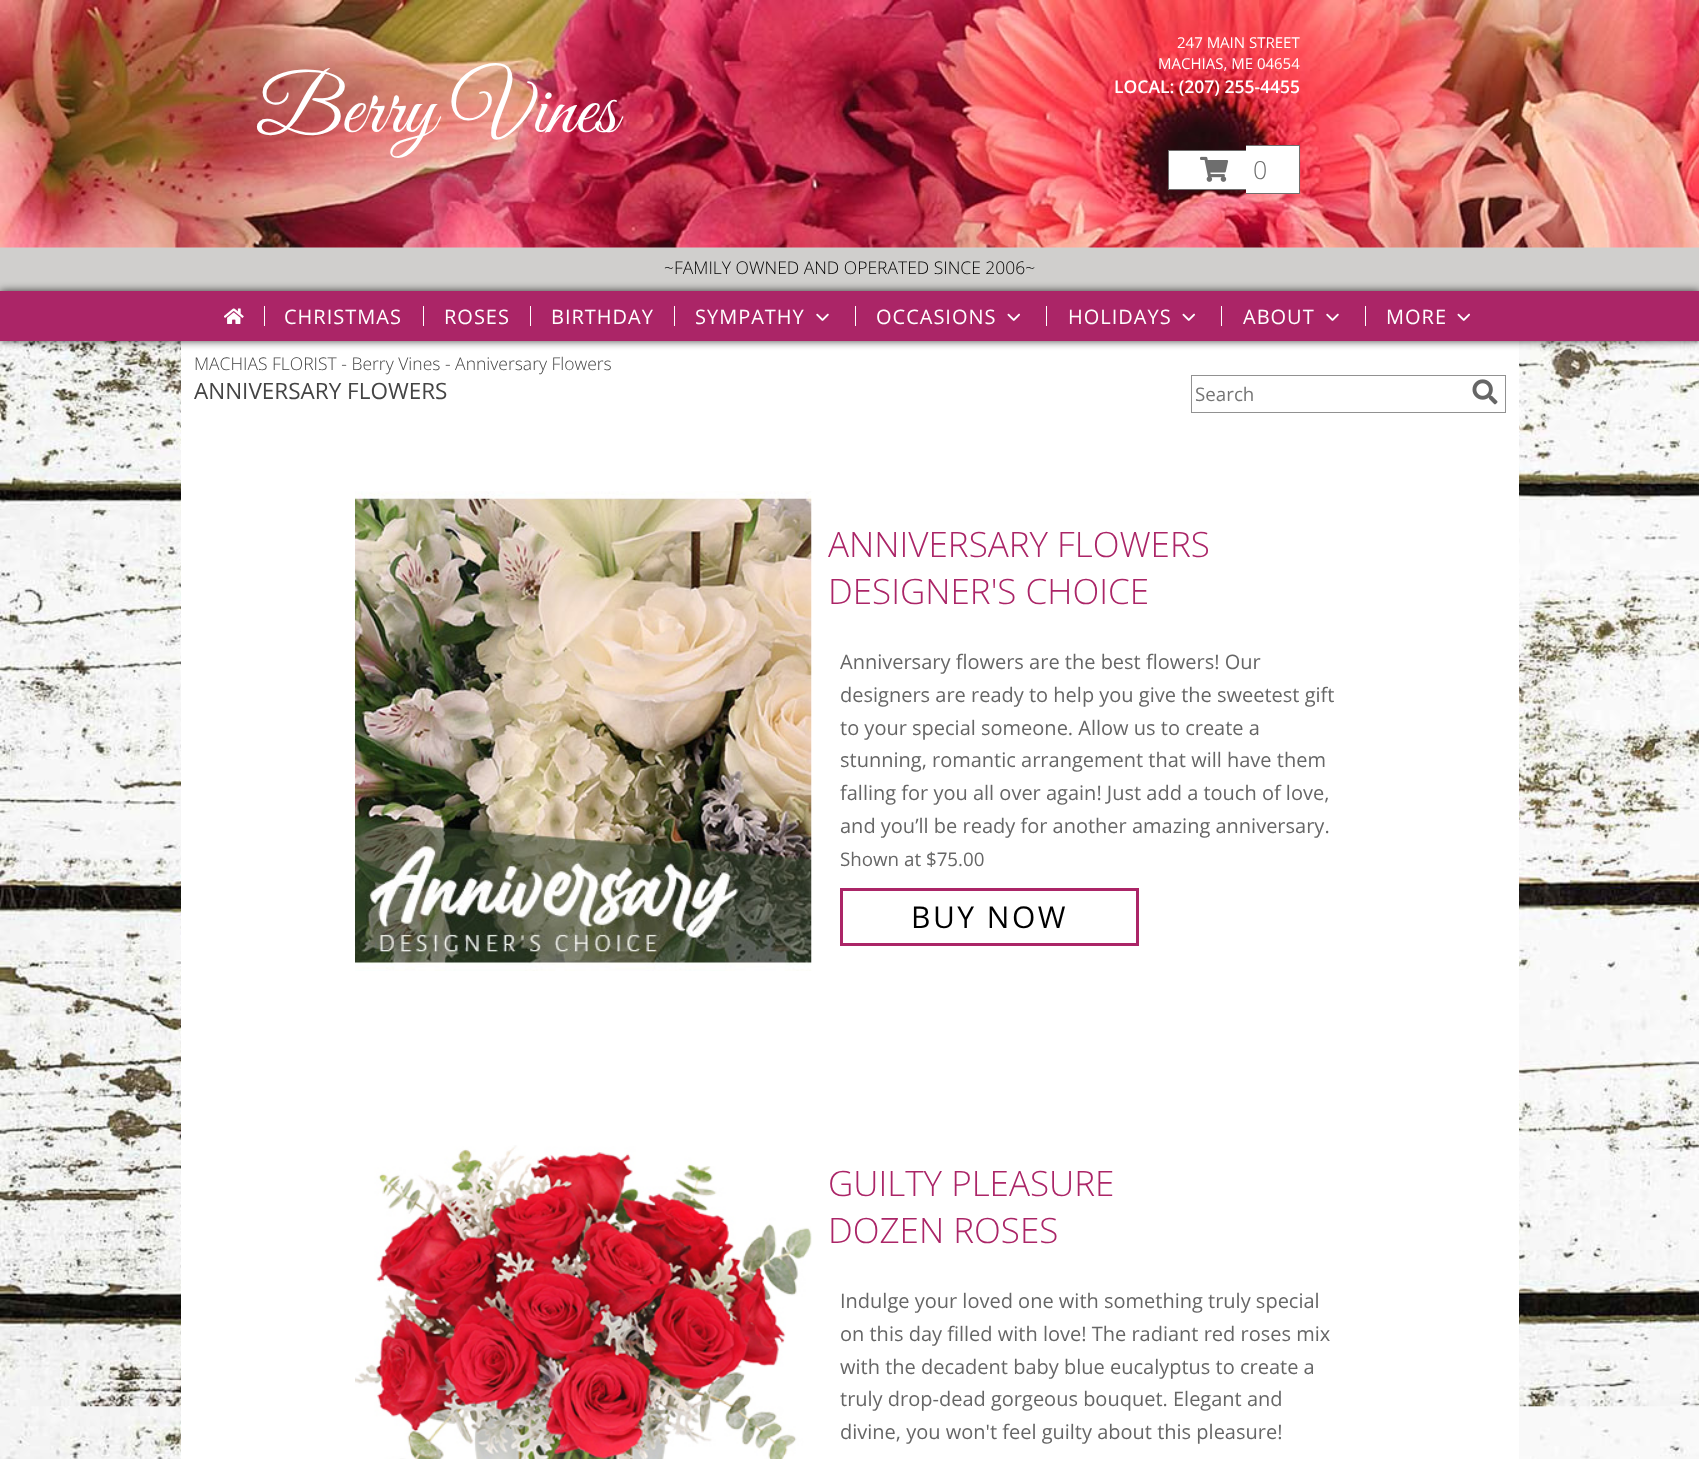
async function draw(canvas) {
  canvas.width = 1699;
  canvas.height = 1459;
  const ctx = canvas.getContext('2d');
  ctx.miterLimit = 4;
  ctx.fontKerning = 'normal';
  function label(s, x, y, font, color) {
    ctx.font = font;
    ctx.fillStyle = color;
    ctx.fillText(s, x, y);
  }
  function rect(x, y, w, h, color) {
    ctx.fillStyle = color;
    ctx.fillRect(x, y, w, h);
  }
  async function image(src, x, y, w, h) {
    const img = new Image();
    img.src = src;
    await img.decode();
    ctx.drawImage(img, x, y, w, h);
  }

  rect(0, 0, 1699, 1459, '#fff');
  await image('assets/img1.png', 0, 341, 1699, 1118);
  rect(181, 341, 1338, 1118, '#fff');
  rect(0, 247, 1699, 44, '#d0cfcd');
  await image('assets/img2.png', 0, 0, 1699, 248);
  label('Berry Vines', 256, 132, '81.25px Great Vibes', '#fff');
  label('247 MAIN STREET', 1177, 48, '15px Open Sans', '#fff');
  label('MACHIAS, ME 04654', 1158, 69, '15px Open Sans', '#fff');
  label('LOCAL: (207) 255-4455', 1114, 93, '600 17.5px Open Sans', '#fff');
  rect(1169, 151, 77, 38, '#fff');
  rect(1168, 150, 78, 1, '#6e6e6e');
  rect(1168, 189, 78, 1, '#6e6e6e');
  rect(1168, 150, 1, 40, '#6e6e6e');
  rect(1246, 145, 8, 49, '#fff');
  rect(1246, 145, 54, 1, '#6e6e6e');
  rect(1246, 193, 8, 1, '#6e6e6e');
  rect(1254, 146, 45, 47, '#fff');
  rect(1299, 145, 1, 49, '#6e6e6e');
  rect(1254, 193, 46, 1, '#6e6e6e');
  await image('assets/img3.png', 1200, 156, 29, 26);
  label('0', 1253, 179, '300 25px Open Sans', '#6e6e6e');
  label('~FAMILY OWNED AND OPERATED SINCE 2006~', 664, 274, '300 17.5px Open Sans', '#000');
  ctx.fillStyle = '#000000bf';
  ctx.filter = 'blur(4px)';
  ctx.beginPath();
  ctx.rect(0, 291, 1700, 50);
  ctx.fill();
  ctx.filter = 'none';
  rect(0, 291, 1699, 50, '#ab2567');
  await image('assets/img4.png', 224, 308, 20, 16);
  rect(264, 306, 1, 20, '#fff');
  ctx.letterSpacing = '1px';
  label('CHRISTMAS', 284, 324, '20px Open Sans', '#fff');
  rect(423, 306, 1, 20, '#fff');
  label('ROSES', 444, 324, '20px Open Sans', '#fff');
  rect(530, 306, 1, 20, '#fff');
  label('BIRTHDAY', 551, 324, '20px Open Sans', '#fff');
  rect(674, 306, 1, 20, '#fff');
  label('SYMPATHY', 695, 324, '20px Open Sans', '#fff');
  await image('assets/img5.png', 816, 313, 13, 8);
  rect(855, 306, 1, 20, '#fff');
  label('OCCASIONS', 876, 324, '20px Open Sans', '#fff');
  await image('assets/img6.png', 1007, 313, 13, 8);
  rect(1046, 306, 1, 20, '#fff');
  label('HOLIDAYS', 1068, 324, '20px Open Sans', '#fff');
  await image('assets/img6.png', 1182, 313, 13, 8);
  rect(1221, 306, 1, 20, '#fff');
  label('ABOUT', 1243, 324, '20px Open Sans', '#fff');
  await image('assets/img5.png', 1326, 313, 13, 8);
  rect(1365, 306, 1, 20, '#fff');
  label('MORE', 1386, 324, '20px Open Sans', '#fff');
  await image('assets/img6.png', 1457, 313, 13, 8);
  ctx.letterSpacing = '0px';
  label('MACHIAS FLORIST - Berry Vines - Anniversary Flowers', 194, 370, '300 17.5px Open Sans', '#444');
  label('ANNIVERSARY FLOWERS', 194, 399, '22.5px Open Sans', '#444');
  ctx.strokeStyle = '#919191';
  ctx.strokeRect(1191.5, 375.5, 314, 37);
  label('Search', 1195, 401, '18.75px Open Sans', '#757575');
  await image('assets/img7.png', 1472, 379, 26, 26);
  await image('assets/img8.png', 355, 491, 457, 480);
  label('ANNIVERSARY FLOWERS', 828, 557, '300 35px Open Sans', '#ab2567');
  label('DESIGNER\'S CHOICE', 828, 604, '300 35px Open Sans', '#ab2567');
  label('Anniversary flowers are the best flowers! Our', 840, 669, '20px Open Sans', '#666');
  label('designers are ready to help you give the sweetest gift', 840, 702, '20px Open Sans', '#666');
  label('to your special someone. Allow us to create a', 840, 735, '20px Open Sans', '#666');
  label('stunning, romantic arrangement that will have them', 840, 767, '20px Open Sans', '#666');
  label('falling for you all over again! Just add a touch of love,', 840, 800, '20px Open Sans', '#666');
  label('and you’ll be ready for another amazing anniversary.', 840, 833, '20px Open Sans', '#666');
  label('Shown at $75.00', 840, 866, '18.75px Open Sans', '#666');
  ctx.strokeStyle = '#ab2567';
  ctx.lineWidth = 3;
  ctx.strokeRect(841.5, 889.5, 296, 55);
  ctx.letterSpacing = '2.5px';
  label('BUY NOW', 911, 928, '30px Open Sans', '#000');
  await image('assets/img9.png', 355, 1145, 457, 314);
  ctx.letterSpacing = '0px';
  label('GUILTY PLEASURE', 828, 1196, '300 35px Open Sans', '#ab2567');
  label('DOZEN ROSES', 828, 1243, '300 35px Open Sans', '#ab2567');
  label('Indulge your loved one with something truly special', 840, 1308, '20px Open Sans', '#666');
  label('on this day filled with love! The radiant red roses mix', 840, 1341, '20px Open Sans', '#666');
  label('with the decadent baby blue eucalyptus to create a', 840, 1374, '20px Open Sans', '#666');
  label('truly drop-dead gorgeous bouquet. Elegant and', 840, 1406, '20px Open Sans', '#666');
  label('divine, you won\'t feel guilty about this pleasure!', 840, 1439, '20px Open Sans', '#666');
}

draw(document.querySelector('canvas'));
